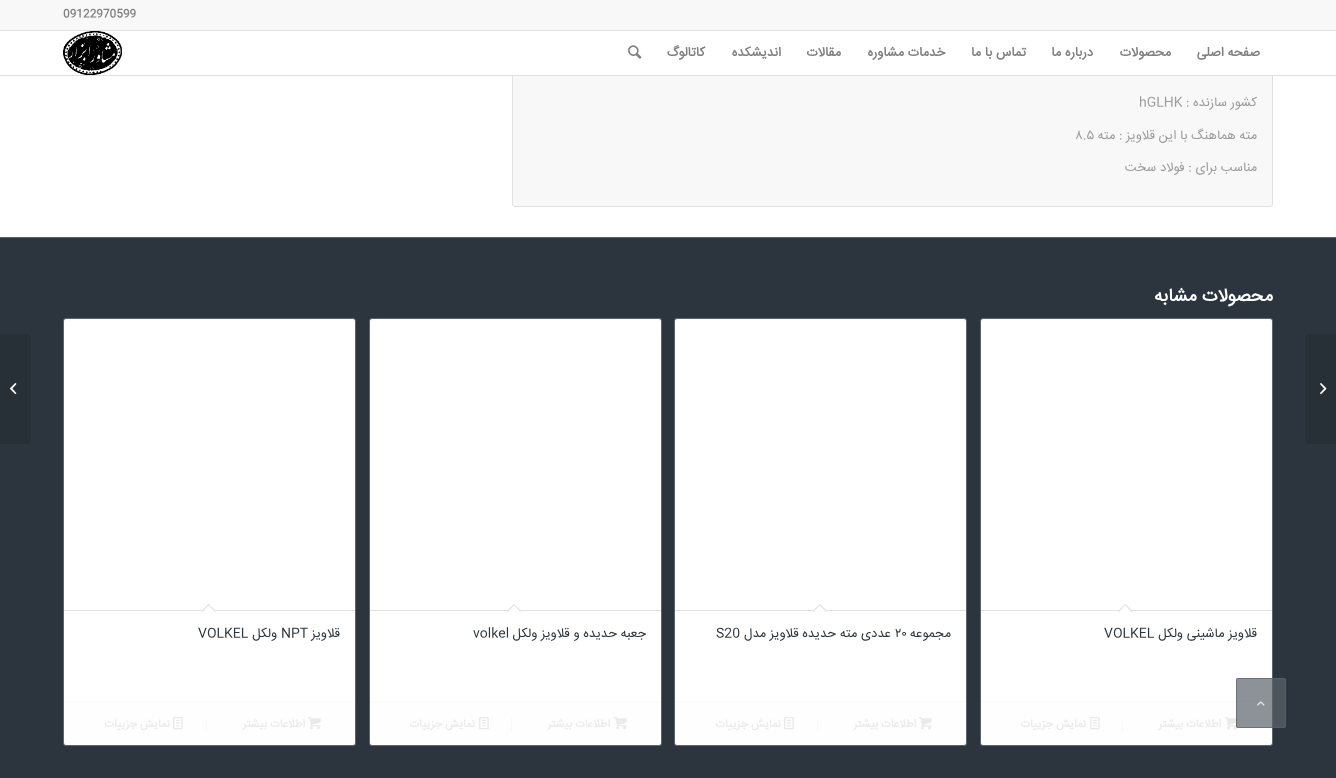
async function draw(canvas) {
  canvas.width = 1336;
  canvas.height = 778;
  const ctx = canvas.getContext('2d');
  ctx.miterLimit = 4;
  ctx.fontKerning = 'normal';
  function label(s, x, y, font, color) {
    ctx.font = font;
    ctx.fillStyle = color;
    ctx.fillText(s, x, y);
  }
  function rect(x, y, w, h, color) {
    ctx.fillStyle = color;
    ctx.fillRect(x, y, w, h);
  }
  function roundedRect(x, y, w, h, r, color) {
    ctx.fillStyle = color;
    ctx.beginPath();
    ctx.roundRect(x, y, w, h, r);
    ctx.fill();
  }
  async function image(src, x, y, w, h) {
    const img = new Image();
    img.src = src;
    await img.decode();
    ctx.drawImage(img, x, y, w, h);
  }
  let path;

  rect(0, 0, 1336, 778, '#fff');
  ctx.fillStyle = '#f8f8f8';
  path = new Path2D('M512.5-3.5H1272.5V204C1272.5 205.5 1271.5 206.5 1270 206.5H515C513.5 206.5 512.5 205.5 512.5 204Z');
  ctx.fill(path);
  ctx.strokeStyle = '#e1e1e1';
  ctx.stroke(path);
  rect(0, 0, 1336, 30, '#f8f8f8');
  rect(0, 30, 1336, 1, '#e1e1e1');
  label('09122970599', 63, 17, 'bold 11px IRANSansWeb', '#808080');
  rect(512, 31, 761, 44, '#fffffff2');
  rect(0, 75, 1336, 1, '#e1e1e1');
  ctx.direction = 'rtl';
  label('صفحه اصلی', 1260, 56, 'bold 13px IRANSansWeb', '#808080');
  label('محصولات', 1171, 56, 'bold 13px IRANSansWeb', '#808080');
  label('درباره ما', 1093, 56, 'bold 13px IRANSansWeb', '#808080');
  label('تماس با ما', 1026, 56, 'bold 13px IRANSansWeb', '#808080');
  label('خدمات مشاوره', 945, 56, 'bold 13px IRANSansWeb', '#808080');
  label('مقالات', 841, 56, 'bold 13px IRANSansWeb', '#808080');
  label('اندیشکده', 781, 56, 'bold 13px IRANSansWeb', '#808080');
  label('کاتالوگ', 705, 56, 'bold 13px IRANSansWeb', '#808080');
  await image('assets/img1.png', 628, 45, 14, 14);
  await image('assets/img2.png', 63, 31, 59, 44);
  rect(0, 238, 1336, 540, '#2c353d');
  ctx.fillStyle = '#283037';
  ctx.beginPath();
  ctx.roundRect(1305, 334, 31, 110, [4, 0, 0, 4]);
  ctx.fill();
  await image('assets/img3.png', 1320, 383, 7, 12);
  label('کشور سازنده :', 1257, 106, '13px IRANSansWeb', '#9c9c9c');
  ctx.direction = 'ltr';
  label('hGLHK', 1139, 106, '13px IRANSansWeb', '#9c9c9c');
  ctx.direction = 'rtl';
  label('مته هماهنگ با این قلاویز : مته', 1257, 139, '13px IRANSansWeb', '#9c9c9c');
  ctx.direction = 'ltr';
  label('۸.۵', 1075, 139, '13px IRANSansWeb', '#9c9c9c');
  ctx.direction = 'rtl';
  label('مناسب برای : فولاد سخت', 1257, 171, '13px IRANSansWeb', '#9c9c9c');
  rect(0, 237, 1336, 1, '#5b646b');
  label('محصولات مشابه', 1273, 301, 'bold 18px IRANSansWeb', '#fff');
  ctx.beginPath();
  ctx.roundRect(980.5, 318.5, 292, 427, 2.5);
  ctx.fill();
  ctx.strokeStyle = '#5b646b';
  ctx.stroke();
  rect(981, 610, 291, 1, '#e1e1e1');
  ctx.fillStyle = '#fff';
  path = new Path2D('M1125.5 604L1132.5 611L1125.5 618L1118 611Z');
  ctx.fill(path);
  ctx.fillStyle = '#e1e1e1';
  path = new Path2D('M1125.5 604L1132.5 611L1131.5 612L1124.5 604.5Z');
  ctx.fill(path);
  path = new Path2D('M1125.5 604L1126 604.5L1119 612L1118 611Z');
  ctx.fill(path);
  label('قلاویز ماشینی ولکل', 1257, 637, '13px IRANSansWeb', '#2c353d');
  ctx.direction = 'ltr';
  label('VOLKEL', 1104, 637, '13px IRANSansWeb', '#2c353d');
  ctx.fillStyle = '#f8f8f833';
  ctx.beginPath();
  ctx.roundRect(981, 701, 291, 44, [0, 0, 2, 2]);
  ctx.fill();
  rect(981, 701, 291, 1, '#f9f9f9');
  await image('assets/img4.png', 1225, 717, 13, 13);
  ctx.direction = 'rtl';
  label('اطلاعات بیشتر', 1221, 727, 'bold 11px IRANSansWeb', '#ebebeb');
  rect(1122, 718, 1, 14, '#f9f9f9');
  await image('assets/img5.png', 1090, 717, 10, 13);
  label('نمایش جزییات', 1086, 727, 'bold 11px IRANSansWeb', '#ebebeb');
  ctx.fillStyle = '#fff';
  ctx.beginPath();
  ctx.roundRect(674.5, 318.5, 292, 427, 2.5);
  ctx.fill();
  ctx.stroke();
  rect(675, 610, 291, 1, '#e1e1e1');
  ctx.fillStyle = '#fff';
  path = new Path2D('M820 604L827 611L820 618L812.5 611Z');
  ctx.fill(path);
  ctx.fillStyle = '#e1e1e1';
  path = new Path2D('M820 604L827 611L826 612L819 604.5Z');
  ctx.fill(path);
  path = new Path2D('M820 604L820.5 604.5L813.5 612L812.5 611Z');
  ctx.fill(path);
  label('مجموعه', 951, 637, '13px IRANSansWeb', '#2c353d');
  ctx.direction = 'ltr';
  label('۲۰', 895, 637, '13px IRANSansWeb', '#2c353d');
  ctx.direction = 'rtl';
  label('عددی مته حدیده قلاویز مدل', 891, 637, '13px IRANSansWeb', '#2c353d');
  ctx.direction = 'ltr';
  label('S20', 716, 637, '13px IRANSansWeb', '#2c353d');
  ctx.fillStyle = '#f8f8f833';
  ctx.beginPath();
  ctx.roundRect(675, 701, 291, 44, [0, 0, 2, 2]);
  ctx.fill();
  rect(675, 701, 291, 1, '#f9f9f9');
  await image('assets/img4.png', 919, 717, 13, 13);
  ctx.direction = 'rtl';
  label('اطلاعات بیشتر', 916, 727, 'bold 11px IRANSansWeb', '#ebebeb');
  rect(817, 718, 1, 14, '#f9f9f9');
  await image('assets/img5.png', 784, 717, 10, 13);
  label('نمایش جزییات', 781, 727, 'bold 11px IRANSansWeb', '#ebebeb');
  ctx.fillStyle = '#fff';
  ctx.beginPath();
  ctx.roundRect(369.5, 318.5, 292, 427, 2.5);
  ctx.fill();
  ctx.stroke();
  rect(370, 610, 291, 1, '#e1e1e1');
  ctx.fillStyle = '#fff';
  path = new Path2D('M514 604L521.5 611L514 618L507 611Z');
  ctx.fill(path);
  ctx.fillStyle = '#e1e1e1';
  path = new Path2D('M514 604L521.5 611L520.5 612L513.5 604.5Z');
  ctx.fill(path);
  path = new Path2D('M514 604L515 604.5L508 612L507 611Z');
  ctx.fill(path);
  label('جعبه حدیده و قلاویز ولکل', 646, 637, '13px IRANSansWeb', '#2c353d');
  ctx.direction = 'ltr';
  label('volkel', 473, 637, '13px IRANSansWeb', '#2c353d');
  ctx.fillStyle = '#f8f8f833';
  ctx.beginPath();
  ctx.roundRect(370, 701, 291, 44, [0, 0, 2, 2]);
  ctx.fill();
  rect(370, 701, 291, 1, '#f9f9f9');
  await image('assets/img4.png', 614, 717, 13, 13);
  ctx.direction = 'rtl';
  label('اطلاعات بیشتر', 610, 727, 'bold 11px IRANSansWeb', '#ebebeb');
  rect(511, 718, 1, 14, '#f9f9f9');
  await image('assets/img5.png', 479, 717, 10, 13);
  label('نمایش جزییات', 475, 727, 'bold 11px IRANSansWeb', '#ebebeb');
  ctx.fillStyle = '#fff';
  ctx.beginPath();
  ctx.roundRect(63.5, 318.5, 292, 427, 2.5);
  ctx.fill();
  ctx.stroke();
  rect(64, 610, 291, 1, '#e1e1e1');
  ctx.fillStyle = '#fff';
  path = new Path2D('M208.5 604L216 611L208.5 618L201.5 611Z');
  ctx.fill(path);
  ctx.fillStyle = '#e1e1e1';
  path = new Path2D('M208.5 604L216 611L215 612L208 604.5Z');
  ctx.fill(path);
  path = new Path2D('M208.5 604L209.5 604.5L202.5 612L201.5 611Z');
  ctx.fill(path);
  label('قلاویز', 340, 637, '13px IRANSansWeb', '#2c353d');
  ctx.direction = 'ltr';
  label('NPT', 281, 637, '13px IRANSansWeb', '#2c353d');
  ctx.direction = 'rtl';
  label('ولکل', 277, 637, '13px IRANSansWeb', '#2c353d');
  ctx.direction = 'ltr';
  label('VOLKEL', 198, 637, '13px IRANSansWeb', '#2c353d');
  ctx.fillStyle = '#f8f8f833';
  ctx.beginPath();
  ctx.roundRect(64, 701, 291, 44, [0, 0, 2, 2]);
  ctx.fill();
  rect(64, 701, 291, 1, '#f9f9f9');
  await image('assets/img4.png', 308, 717, 13, 13);
  ctx.direction = 'rtl';
  label('اطلاعات بیشتر', 305, 727, 'bold 11px IRANSansWeb', '#ebebeb');
  rect(206, 718, 1, 14, '#f9f9f9');
  await image('assets/img5.png', 173, 717, 10, 13);
  label('نمایش جزییات', 170, 727, 'bold 11px IRANSansWeb', '#ebebeb');
  ctx.fillStyle = '#283037';
  ctx.beginPath();
  ctx.roundRect(0, 334, 31, 110, [0, 4, 4, 0]);
  ctx.fill();
  await image('assets/img6.png', 10, 383, 7, 12);
  roundedRect(1236, 678, 50, 50, 2, '#5b646bb3');
  ctx.beginPath();
  ctx.roundRect(1236.5, 678.5, 49, 49, 1.5);
  ctx.strokeStyle = '#5b646bb3';
  ctx.stroke();
  await image('assets/img7.png', 1257, 701, 8, 5);
}

draw(document.querySelector('canvas'));
